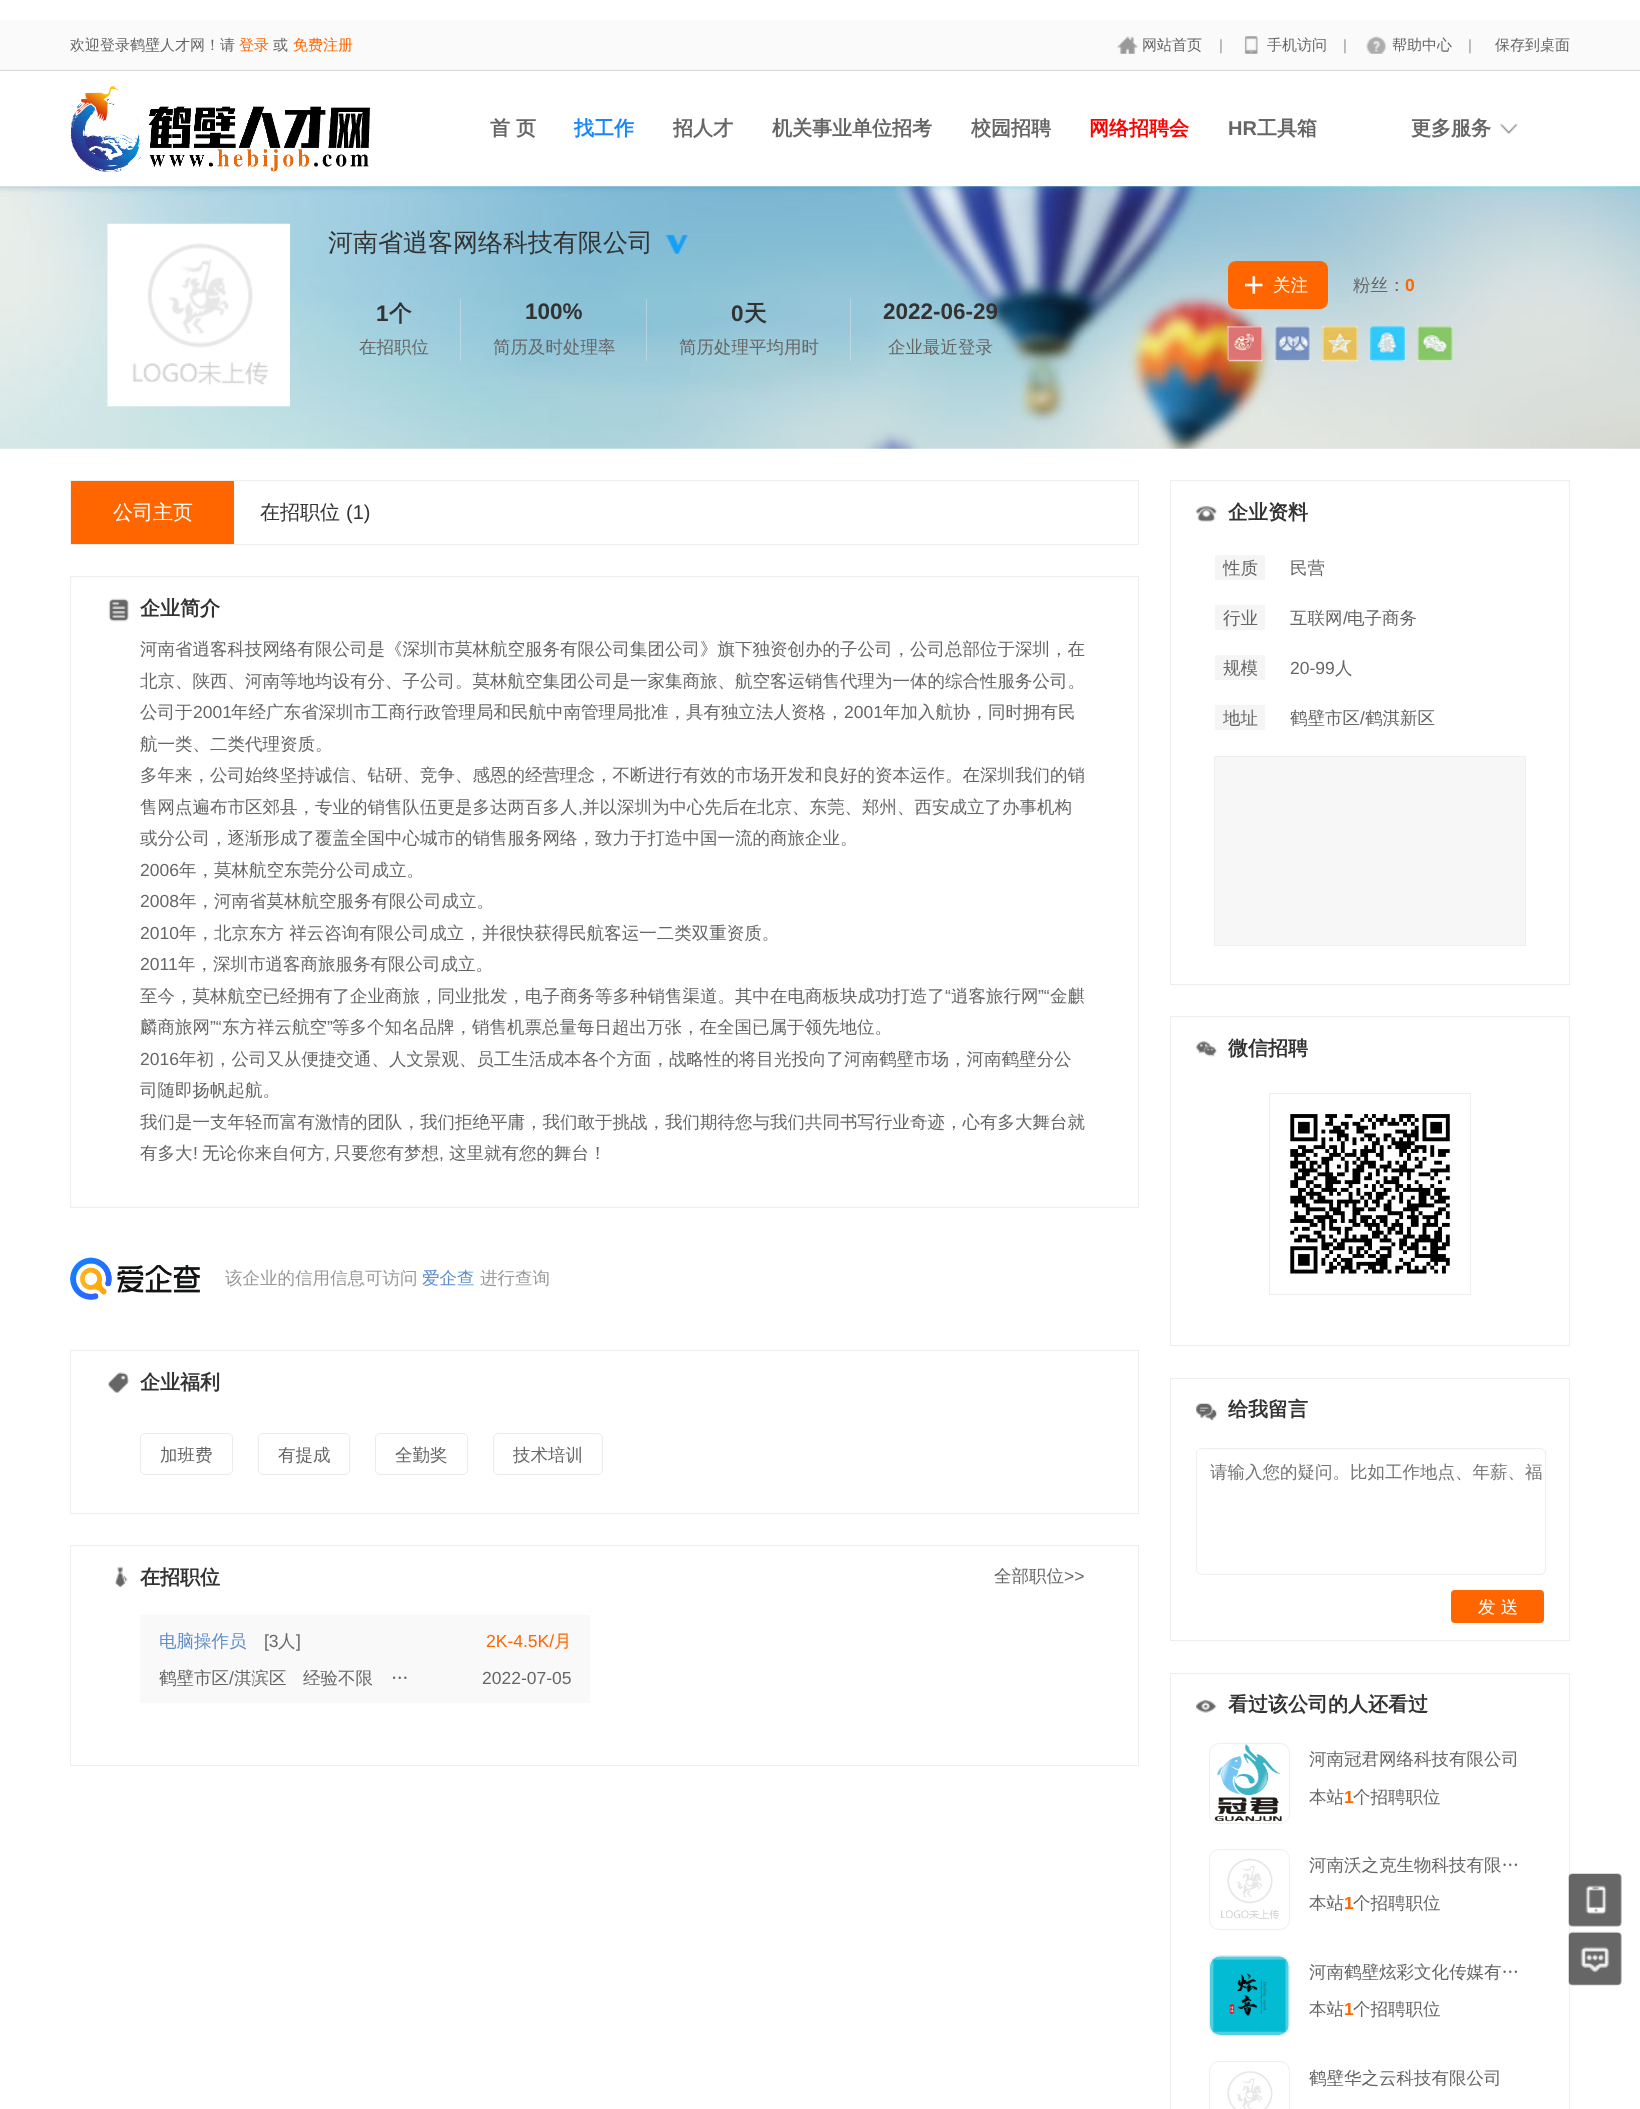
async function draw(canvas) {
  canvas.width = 1640;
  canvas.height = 2109;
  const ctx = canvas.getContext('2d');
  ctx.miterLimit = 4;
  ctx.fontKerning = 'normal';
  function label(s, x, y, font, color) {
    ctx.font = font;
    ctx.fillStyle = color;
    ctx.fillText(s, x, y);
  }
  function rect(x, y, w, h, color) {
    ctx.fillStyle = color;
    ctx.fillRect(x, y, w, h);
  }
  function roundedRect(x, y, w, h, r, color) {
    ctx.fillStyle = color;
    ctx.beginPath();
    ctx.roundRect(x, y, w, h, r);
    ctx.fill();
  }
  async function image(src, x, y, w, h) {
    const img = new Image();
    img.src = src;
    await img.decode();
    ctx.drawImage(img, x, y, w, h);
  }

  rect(0, 0, 1640, 2109, '#fff');
  rect(0, 20, 1640, 50, '#fafafa');
  label('欢迎登录鹤壁人才网！请', 70, 50, '500 15px WenQuanYi Zen Hei', '#666');
  label('登录', 239, 50, '500 15px WenQuanYi Zen Hei', '#f60');
  label('或', 273, 50, '500 15px WenQuanYi Zen Hei', '#666');
  label('免费注册', 293, 50, '500 15px WenQuanYi Zen Hei', '#f60');
  await image('assets/img1.png', 1117, 36, 21, 18);
  label('网站首页', 1142, 50, '500 15px WenQuanYi Zen Hei', '#666');
  label('|', 1219, 50, '15px Liberation Sans', '#999');
  await image('assets/img2.png', 1244, 36, 14, 18);
  label('手机访问', 1267, 50, '500 15px WenQuanYi Zen Hei', '#666');
  label('|', 1343, 50, '15px Liberation Sans', '#999');
  await image('assets/img3.png', 1366, 36, 21, 18);
  label('帮助中心', 1392, 50, '500 15px WenQuanYi Zen Hei', '#666');
  label('|', 1468, 50, '15px Liberation Sans', '#999');
  label('保存到桌面', 1495, 50, '500 15px WenQuanYi Zen Hei', '#666');
  rect(0, 70, 1640, 1, '#d8d8d8');
  await image('assets/img4.png', 70, 86, 300, 86);
  label('首', 490, 135, 'bold 20px WenQuanYi Zen Hei', '#666');
  label('页', 516, 135, 'bold 20px WenQuanYi Zen Hei', '#666');
  label('找工作', 574, 135, 'bold 20px WenQuanYi Zen Hei', '#1787fb');
  label('招人才', 673, 135, 'bold 20px WenQuanYi Zen Hei', '#666');
  label('机关事业单位招考', 772, 135, 'bold 20px WenQuanYi Zen Hei', '#666');
  label('校园招聘', 971, 135, 'bold 20px WenQuanYi Zen Hei', '#666');
  label('网络招聘会', 1089, 135, 'bold 20px WenQuanYi Zen Hei', '#f00');
  label('HR', 1228, 135, 'bold 20px Liberation Sans', '#666');
  label('工具箱', 1257, 135, 'bold 20px WenQuanYi Zen Hei', '#666');
  await image('assets/img5.png', 1500, 123, 18, 11);
  label('更多服务', 1411, 135, 'bold 20px WenQuanYi Zen Hei', '#666');
  await image('assets/img6.png', 0, 186, 1640, 263);
  await image('assets/img7.png', 107, 223, 183, 184);
  label('河南省逍客网络科技有限公司', 328, 251, '500 25px WenQuanYi Zen Hei', '#333');
  await image('assets/img8.png', 666, 234, 22, 20);
  roundedRect(1228, 261, 100, 48, 8, '#f60');
  await image('assets/img9.png', 1245, 276, 18, 18);
  label('关注', 1273, 291, '500 17.5px WenQuanYi Zen Hei', '#fff');
  label('粉丝：', 1353, 291, '500 17.5px WenQuanYi Zen Hei', '#666');
  label('0', 1405, 291, 'bold 17.5px Liberation Sans', '#f60');
  rect(460, 299, 1, 62, '#e8e8e86e');
  label('1', 376, 321, 'bold 22.5px Liberation Sans', '#333');
  label('个', 389, 321, 'bold 22.5px WenQuanYi Zen Hei', '#333');
  label('在招职位', 359, 353, '500 17.5px WenQuanYi Zen Hei', '#666');
  rect(646, 299, 1, 62, '#e8e8e86e');
  label('100%', 525, 319, 'bold 22.5px Liberation Sans', '#333');
  label('简历及时处理率', 493, 353, '500 17.5px WenQuanYi Zen Hei', '#666');
  rect(850, 299, 1, 62, '#e8e8e86e');
  label('0', 731, 321, 'bold 22.5px Liberation Sans', '#333');
  label('天', 744, 321, 'bold 22.5px WenQuanYi Zen Hei', '#333');
  label('简历处理平均用时', 679, 353, '500 17.5px WenQuanYi Zen Hei', '#666');
  label('2022-06-29', 883, 319, 'bold 22.5px Liberation Sans', '#333');
  label('企业最近登录', 888, 353, '500 17.5px WenQuanYi Zen Hei', '#666');
  await image('assets/img10.png', 1227, 326, 36, 36);
  await image('assets/img11.png', 1275, 326, 35, 36);
  await image('assets/img12.png', 1322, 326, 36, 36);
  await image('assets/img13.png', 1370, 326, 35, 36);
  await image('assets/img14.png', 1417, 326, 36, 36);
  ctx.strokeStyle = '#eee';
  ctx.strokeRect(70.5, 480.5, 1068, 64);
  rect(71, 481, 163, 63, '#f60');
  label('公司主页', 113, 519, '500 20px WenQuanYi Zen Hei', '#fff');
  label('在招职位', 260, 519, '500 20px WenQuanYi Zen Hei', '#333');
  label('(1)', 346, 519, '20px Liberation Sans', '#333');
  ctx.strokeRect(70.5, 576.5, 1068, 631);
  await image('assets/img15.png', 108, 598, 21, 24);
  label('企业简介', 140, 615, 'bold 20px WenQuanYi Zen Hei', '#333');
  label('河南省逍客科技网络有限公司是《深圳市莫林航空服务有限公司集团公司》旗下独资创办的子公司，公司总部位于深圳，在', 140, 655, '500 17.5px WenQuanYi Zen Hei', '#666');
  label('北京、陕西、河南等地均设有分、子公司。莫林航空集团公司是一家集商旅、航空客运销售代理为一体的综合性服务公司。', 140, 687, '500 17.5px WenQuanYi Zen Hei', '#666');
  label('公司于', 140, 718, '500 17.5px WenQuanYi Zen Hei', '#666');
  label('2001', 193, 718, '17.5px Liberation Sans', '#666');
  label('年经广东省深圳市工商行政管理局和民航中南管理局批准，具有独立法人资格，', 231, 718, '500 17.5px WenQuanYi Zen Hei', '#666');
  label('2001', 844, 718, '17.5px Liberation Sans', '#666');
  label('年加入航协，同时拥有民', 883, 718, '500 17.5px WenQuanYi Zen Hei', '#666');
  label('航一类、二类代理资质。', 140, 750, '500 17.5px WenQuanYi Zen Hei', '#666');
  label('多年来，公司始终坚持诚信、钻研、竞争、感恩的经营理念，不断进行有效的市场开发和良好的资本运作。在深圳我们的销', 140, 781, '500 17.5px WenQuanYi Zen Hei', '#666');
  label('售网点遍布市区郊县，专业的销售队伍更是多达两百多人', 140, 813, '500 17.5px WenQuanYi Zen Hei', '#666');
  label(',', 578, 813, '17.5px Liberation Sans', '#666');
  label('并以深圳为中心先后在北京、东莞、郑州、西安成立了办事机构', 582, 813, '500 17.5px WenQuanYi Zen Hei', '#666');
  label('或分公司，逐渐形成了覆盖全国中心城市的销售服务网络，致力于打造中国一流的商旅企业。', 140, 844, '500 17.5px WenQuanYi Zen Hei', '#666');
  label('2006', 140, 876, '17.5px Liberation Sans', '#666');
  label('年，莫林航空东莞分公司成立。', 179, 876, '500 17.5px WenQuanYi Zen Hei', '#666');
  label('2008', 140, 907, '17.5px Liberation Sans', '#666');
  label('年，河南省莫林航空服务有限公司成立。', 179, 907, '500 17.5px WenQuanYi Zen Hei', '#666');
  label('2010', 140, 939, '17.5px Liberation Sans', '#666');
  label('年，北京东方 祥云咨询有限公司成立，并很快获得民航客运一二类双重资质。', 179, 939, '500 17.5px WenQuanYi Zen Hei', '#666');
  label('2011', 140, 970, '17.5px Liberation Sans', '#666');
  label('年，深圳市逍客商旅服务有限公司成立。', 178, 970, '500 17.5px WenQuanYi Zen Hei', '#666');
  label('至今，莫林航空已经拥有了企业商旅，同业批发，电子商务等多种销售渠道。其中在电商板块成功打造了', 140, 1002, '500 17.5px WenQuanYi Zen Hei', '#666');
  label('“', 945, 1002, '17.5px Liberation Sans', '#666');
  label('逍客旅行网', 951, 1002, '500 17.5px WenQuanYi Zen Hei', '#666');
  label('”“', 1038, 1002, '17.5px Liberation Sans', '#666');
  label('金麒', 1050, 1002, '500 17.5px WenQuanYi Zen Hei', '#666');
  label('麟商旅网', 140, 1033, '500 17.5px WenQuanYi Zen Hei', '#666');
  label('”“', 210, 1033, '17.5px Liberation Sans', '#666');
  label('东方祥云航空', 222, 1033, '500 17.5px WenQuanYi Zen Hei', '#666');
  label('”', 327, 1033, '17.5px Liberation Sans', '#666');
  label('等多个知名品牌，销售机票总量每日超出万张，在全国已属于领先地位。', 332, 1033, '500 17.5px WenQuanYi Zen Hei', '#666');
  label('2016', 140, 1065, '17.5px Liberation Sans', '#666');
  label('年初，公司又从便捷交通、人文景观、员工生活成本各个方面，战略性的将目光投向了河南鹤壁市场，河南鹤壁分公', 179, 1065, '500 17.5px WenQuanYi Zen Hei', '#666');
  label('司随即扬帆起航。', 140, 1096, '500 17.5px WenQuanYi Zen Hei', '#666');
  label('我们是一支年轻而富有激情的团队，我们拒绝平庸，我们敢于挑战，我们期待您与我们共同书写行业奇迹，心有多大舞台就', 140, 1128, '500 17.5px WenQuanYi Zen Hei', '#666');
  label('有多大', 140, 1159, '500 17.5px WenQuanYi Zen Hei', '#666');
  label('!', 193, 1159, '17.5px Liberation Sans', '#666');
  label('无论你来自何方', 202, 1159, '500 17.5px WenQuanYi Zen Hei', '#666');
  label('只要您有梦想', 334, 1159, '500 17.5px WenQuanYi Zen Hei', '#666');
  label('这里就有您的舞台！', 449, 1159, '500 17.5px WenQuanYi Zen Hei', '#666');
  label(',', 325, 1159, '17.5px Liberation Sans', '#666');
  label(',', 439, 1159, '17.5px Liberation Sans', '#666');
  await image('assets/img16.png', 70, 1257, 130, 43);
  label('该企业的信用信息可访问', 225, 1284, '500 17.5px WenQuanYi Zen Hei', '#999');
  label('爱企查', 422, 1284, '500 17.5px WenQuanYi Zen Hei', '#5f8dc9');
  label('进行查询', 480, 1284, '500 17.5px WenQuanYi Zen Hei', '#999');
  ctx.strokeRect(70.5, 1350.5, 1068, 163);
  await image('assets/img17.png', 108, 1372, 21, 21);
  label('企业福利', 140, 1389, 'bold 20px WenQuanYi Zen Hei', '#333');
  ctx.beginPath();
  ctx.roundRect(140.5, 1433.5, 92, 41, 4.5);
  ctx.strokeStyle = '#ebebeb';
  ctx.stroke();
  label('加班费', 160, 1461, '500 17.5px WenQuanYi Zen Hei', '#666');
  ctx.beginPath();
  ctx.roundRect(258.5, 1433.5, 91, 41, 4.5);
  ctx.stroke();
  label('有提成', 278, 1461, '500 17.5px WenQuanYi Zen Hei', '#666');
  ctx.beginPath();
  ctx.roundRect(375.5, 1433.5, 92, 41, 4.5);
  ctx.stroke();
  label('全勤奖', 395, 1461, '500 17.5px WenQuanYi Zen Hei', '#666');
  ctx.beginPath();
  ctx.roundRect(493.5, 1433.5, 109, 41, 4.5);
  ctx.stroke();
  label('技术培训', 513, 1461, '500 17.5px WenQuanYi Zen Hei', '#666');
  ctx.strokeStyle = '#eee';
  ctx.strokeRect(70.5, 1545.5, 1068, 220);
  await image('assets/img18.png', 115, 1567, 13, 21);
  label('在招职位', 140, 1584, 'bold 20px WenQuanYi Zen Hei', '#333');
  label('全部职位', 994, 1582, '500 17.5px WenQuanYi Zen Hei', '#666');
  label('>>', 1064, 1582, '17.5px Liberation Sans', '#666');
  rect(140, 1615, 450, 88, '#f9f9f9');
  label('电脑操作员', 159, 1647, '500 17.5px WenQuanYi Zen Hei', '#5f8dc9');
  label('[3', 264, 1647, '17.5px Liberation Sans', '#666');
  label('人', 278, 1647, '500 17.5px WenQuanYi Zen Hei', '#666');
  label(']', 296, 1647, '17.5px Liberation Sans', '#666');
  label('2K-4.5K/', 486, 1647, '17.5px Liberation Sans', '#f60');
  label('月', 554, 1647, '500 17.5px WenQuanYi Zen Hei', '#f60');
  label('鹤壁市区', 159, 1684, '500 17.5px WenQuanYi Zen Hei', '#666');
  label('/', 229, 1684, '17.5px Liberation Sans', '#666');
  label('淇滨区', 234, 1684, '500 17.5px WenQuanYi Zen Hei', '#666');
  label('经验不限', 303, 1684, '500 17.5px WenQuanYi Zen Hei', '#666');
  label('…', 391, 1684, '500 17.5px WenQuanYi Zen Hei', '#666');
  label('2022-07-05', 482, 1684, '17.5px Liberation Sans', '#666');
  ctx.strokeRect(1170.5, 480.5, 399, 504);
  await image('assets/img19.png', 1196, 506, 21, 16);
  label('企业资料', 1228, 519, 'bold 20px WenQuanYi Zen Hei', '#333');
  rect(1215, 555, 50, 25, '#f5f5f5');
  label('性质', 1223, 574, '500 17.5px WenQuanYi Zen Hei', '#666');
  label('民营', 1290, 574, '500 17.5px WenQuanYi Zen Hei', '#666');
  rect(1215, 605, 50, 25, '#f5f5f5');
  label('行业', 1223, 624, '500 17.5px WenQuanYi Zen Hei', '#666');
  label('互联网', 1290, 624, '500 17.5px WenQuanYi Zen Hei', '#666');
  label('/', 1343, 624, '17.5px Liberation Sans', '#666');
  label('电子商务', 1347, 624, '500 17.5px WenQuanYi Zen Hei', '#666');
  rect(1215, 655, 50, 25, '#f5f5f5');
  label('规模', 1223, 674, '500 17.5px WenQuanYi Zen Hei', '#666');
  label('20-99', 1290, 674, '17.5px Liberation Sans', '#666');
  label('人', 1335, 674, '500 17.5px WenQuanYi Zen Hei', '#666');
  rect(1215, 705, 50, 25, '#f5f5f5');
  label('地址', 1223, 724, '500 17.5px WenQuanYi Zen Hei', '#666');
  label('鹤壁市区', 1290, 724, '500 17.5px WenQuanYi Zen Hei', '#666');
  label('/', 1360, 724, '17.5px Liberation Sans', '#666');
  label('鹤淇新区', 1365, 724, '500 17.5px WenQuanYi Zen Hei', '#666');
  ctx.fillStyle = '#f7f7f7';
  ctx.beginPath();
  ctx.rect(1214.5, 756.5, 311, 189);
  ctx.fill();
  ctx.stroke();
  ctx.strokeRect(1170.5, 1016.5, 399, 329);
  await image('assets/img20.png', 1196, 1041, 21, 16);
  label('微信招聘', 1228, 1055, 'bold 20px WenQuanYi Zen Hei', '#333');
  ctx.strokeRect(1269.5, 1093.5, 201, 201);
  await image('assets/img21.png', 1290, 1114, 160, 160);
  ctx.strokeRect(1170.5, 1378.5, 399, 262);
  await image('assets/img22.png', 1196, 1403, 21, 18);
  label('给我留言', 1228, 1416, 'bold 20px WenQuanYi Zen Hei', '#333');
  ctx.beginPath();
  ctx.roundRect(1196.5, 1448.5, 349, 126, 5.5);
  ctx.strokeStyle = '#ededed';
  ctx.stroke();
  label('请输入您的疑问。比如工作地点、年薪、福', 1210, 1478, '500 17.5px WenQuanYi Zen Hei', '#757575');
  roundedRect(1451, 1590, 93, 33, 4, '#f60');
  label('发 送', 1478, 1613, '500 17.5px WenQuanYi Zen Hei', '#fff');
  ctx.strokeStyle = '#eee';
  ctx.strokeRect(1170.5, 1673.5, 399, 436);
  await image('assets/img23.png', 1196, 1699, 21, 14);
  label('看过该公司的人还看过', 1228, 1711, 'bold 20px WenQuanYi Zen Hei', '#333');
  ctx.beginPath();
  ctx.roundRect(1209.5, 1743.5, 80, 80, 9.5);
  ctx.stroke();
  await image('assets/img24.png', 1214, 1744, 68, 78);
  label('河南冠君网络科技有限公司', 1309, 1765, '500 17.5px WenQuanYi Zen Hei', '#666');
  label('本站', 1309, 1803, '500 17.5px WenQuanYi Zen Hei', '#666');
  label('1', 1344, 1803, 'bold 17.5px Liberation Sans', '#f60');
  label('个招聘职位', 1353, 1803, '500 17.5px WenQuanYi Zen Hei', '#666');
  ctx.beginPath();
  ctx.roundRect(1209.5, 1849.5, 80, 80, 9.5);
  ctx.stroke();
  await image('assets/img25.png', 1221, 1858, 58, 61);
  label('河南沃之克生物科技有限…', 1309, 1871, '500 17.5px WenQuanYi Zen Hei', '#666');
  label('本站', 1309, 1909, '500 17.5px WenQuanYi Zen Hei', '#666');
  label('1', 1344, 1909, 'bold 17.5px Liberation Sans', '#f60');
  label('个招聘职位', 1353, 1909, '500 17.5px WenQuanYi Zen Hei', '#666');
  ctx.beginPath();
  ctx.roundRect(1209.5, 1955.5, 80, 80, 9.5);
  ctx.stroke();
  await image('assets/img26.png', 1210, 1956, 79, 79);
  label('河南鹤壁炫彩文化传媒有…', 1309, 1978, '500 17.5px WenQuanYi Zen Hei', '#666');
  label('本站', 1309, 2015, '500 17.5px WenQuanYi Zen Hei', '#666');
  label('1', 1344, 2015, 'bold 17.5px Liberation Sans', '#f60');
  label('个招聘职位', 1353, 2015, '500 17.5px WenQuanYi Zen Hei', '#666');
  ctx.beginPath();
  ctx.roundRect(1209.5, 2061.5, 80, 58, 9.5);
  ctx.stroke();
  await image('assets/img27.png', 1227, 2071, 46, 38);
  label('鹤壁华之云科技有限公司', 1309, 2084, '500 17.5px WenQuanYi Zen Hei', '#666');
  await image('assets/img28.png', 1568, 1873, 54, 54);
  await image('assets/img29.png', 1568, 1931, 54, 55);
}

draw(document.querySelector('canvas'));
